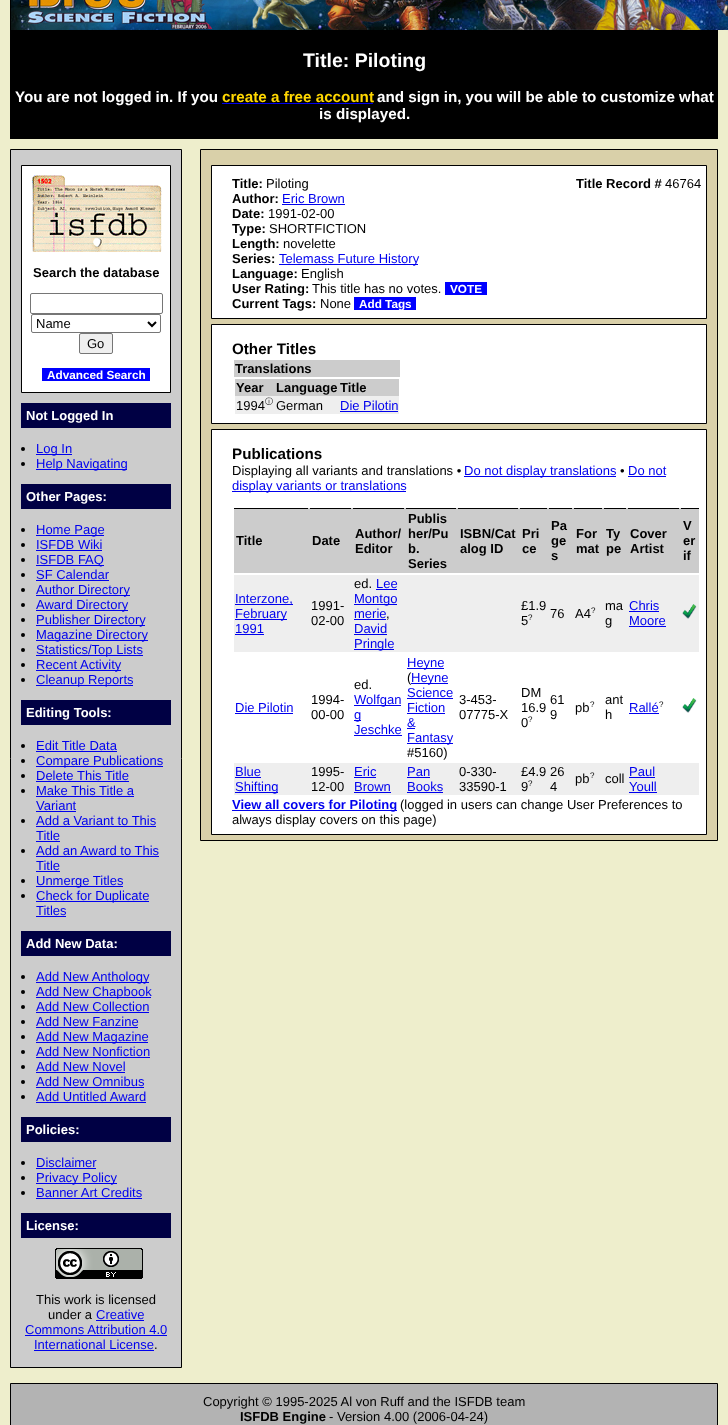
async function draw(canvas) {
  canvas.width = 728;
  canvas.height = 1425;
  const ctx = canvas.getContext('2d');
  ctx.miterLimit = 4;
  ctx.fontKerning = 'normal';
  function label(s, x, y, font, color) {
    ctx.font = font;
    ctx.fillStyle = color;
    ctx.fillText(s, x, y);
  }
  function rect(x, y, w, h, color) {
    ctx.fillStyle = color;
    ctx.fillRect(x, y, w, h);
  }
  async function image(src, x, y, w, h) {
    const img = new Image();
    img.src = src;
    await img.decode();
    ctx.drawImage(img, x, y, w, h);
  }
  let path;

  rect(0, 0, 728, 1425, '#eec');
  ctx.strokeStyle = '#000';
  ctx.strokeRect(10.5, -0.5, 707, 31);
  await image('assets/img1.png', 11, 0, 717, 30);
  rect(10, 31, 708, 108, '#000');
  label('Title: Piloting', 303, 67, 'bold 19.5px Liberation Sans', '#fff');
  label('You are not logged in. If you', 15, 102, 'bold 15.2px Liberation Sans', '#fff');
  label('create a free account', 222, 102, 'bold 15.2px Liberation Sans', '#ffd700');
  rect(222, 103, 151, 1, '#00e');
  label('and sign in, you will be able to customize what', 377, 102, 'bold 15.2px Liberation Sans', '#fff');
  label('is displayed.', 319, 119, 'bold 15.2px Liberation Sans', '#fff');
  ctx.fillStyle = '#ccc';
  ctx.beginPath();
  ctx.rect(10.5, 149.5, 171, 1218);
  ctx.fill();
  ctx.stroke();
  ctx.fillStyle = '#fff';
  ctx.beginPath();
  ctx.rect(21.5, 165.5, 149, 227);
  ctx.fill();
  ctx.stroke();
  await image('assets/img2.png', 32, 175, 130, 77);
  label('Search the database', 33, 277, 'bold 13px Liberation Sans', '#000');
  ctx.beginPath();
  ctx.roundRect(30.5, 293.5, 132, 20, 1.5);
  ctx.strokeStyle = '#767676';
  ctx.stroke();
  ctx.beginPath();
  ctx.roundRect(31.5, 314.5, 129, 18, 1.5);
  ctx.stroke();
  path = new Path2D('M148 322L152 326L156 322');
  ctx.strokeStyle = '#000';
  ctx.lineWidth = 2;
  ctx.stroke(path);
  label('Name', 36, 328, '13px Liberation Sans', '#000');
  ctx.fillStyle = '#efefef';
  ctx.beginPath();
  ctx.roundRect(79.5, 333.5, 33, 20, 1.5);
  ctx.fill();
  ctx.strokeStyle = '#767676';
  ctx.lineWidth = 1;
  ctx.stroke();
  label('Go', 87, 348, '13px Liberation Sans', '#000');
  rect(42, 368, 108, 13, '#00f');
  label('Advanced Search', 47, 379, 'bold 11.75px Liberation Sans', '#fff');
  rect(21, 403, 150, 25, '#004');
  label('Not Logged In', 26, 420, 'bold 13px Liberation Sans', '#fff');
  ctx.fillStyle = '#000';
  ctx.beginPath();
  ctx.arc(23, 449, 2, 0, 2 * Math.PI);
  ctx.fill();
  rect(36, 454, 36, 1, '#00e');
  label('Log In', 36, 453, '13px Liberation Sans', '#00e');
  ctx.fillStyle = '#000';
  ctx.beginPath();
  ctx.arc(23, 464, 2, 0, 2 * Math.PI);
  ctx.fill();
  rect(36, 469, 91, 1, '#00e');
  label('Help Navigating', 36, 468, '13px Liberation Sans', '#00e');
  rect(21, 484, 150, 25, '#004');
  label('Other Pages:', 26, 501, 'bold 13px Liberation Sans', '#fff');
  ctx.fillStyle = '#000';
  ctx.beginPath();
  ctx.arc(23, 530, 2, 0, 2 * Math.PI);
  ctx.fill();
  rect(36, 535, 68, 1, '#00e');
  label('Home Page', 36, 534, '13px Liberation Sans', '#00e');
  ctx.fillStyle = '#000';
  ctx.beginPath();
  ctx.arc(23, 545, 2, 0, 2 * Math.PI);
  ctx.fill();
  label('ISFDB Wiki', 36, 549, '13px Liberation Sans', '#00e');
  rect(36, 550, 66, 1, '#00e');
  ctx.fillStyle = '#000';
  ctx.beginPath();
  ctx.arc(23, 560, 2, 0, 2 * Math.PI);
  ctx.fill();
  rect(36, 565, 68, 1, '#00e');
  label('ISFDB FAQ', 36, 564, '13px Liberation Sans', '#00e');
  ctx.fillStyle = '#000';
  ctx.beginPath();
  ctx.arc(23, 575, 2, 0, 2 * Math.PI);
  ctx.fill();
  label('SF Calendar', 36, 579, '13px Liberation Sans', '#00e');
  rect(36, 580, 73, 1, '#00e');
  ctx.fillStyle = '#000';
  ctx.beginPath();
  ctx.arc(23, 590, 2, 0, 2 * Math.PI);
  ctx.fill();
  rect(36, 595, 94, 1, '#00e');
  label('Author Directory', 36, 594, '13px Liberation Sans', '#00e');
  ctx.fillStyle = '#000';
  ctx.beginPath();
  ctx.arc(23, 605, 2, 0, 2 * Math.PI);
  ctx.fill();
  rect(36, 610, 92, 1, '#00e');
  label('Award Directory', 36, 609, '13px Liberation Sans', '#00e');
  ctx.fillStyle = '#000';
  ctx.beginPath();
  ctx.arc(23, 620, 2, 0, 2 * Math.PI);
  ctx.fill();
  rect(36, 625, 109, 1, '#00e');
  label('Publisher Directory', 36, 624, '13px Liberation Sans', '#00e');
  ctx.fillStyle = '#000';
  ctx.beginPath();
  ctx.arc(23, 635, 2, 0, 2 * Math.PI);
  ctx.fill();
  rect(36, 640, 112, 1, '#00e');
  label('Magazine Directory', 36, 639, '13px Liberation Sans', '#00e');
  ctx.fillStyle = '#000';
  ctx.beginPath();
  ctx.arc(23, 650, 2, 0, 2 * Math.PI);
  ctx.fill();
  rect(36, 655, 107, 1, '#00e');
  label('Statistics/Top Lists', 36, 654, '13px Liberation Sans', '#00e');
  ctx.fillStyle = '#000';
  ctx.beginPath();
  ctx.arc(23, 665, 2, 0, 2 * Math.PI);
  ctx.fill();
  rect(36, 670, 85, 1, '#00e');
  label('Recent Activity', 36, 669, '13px Liberation Sans', '#00e');
  ctx.fillStyle = '#000';
  ctx.beginPath();
  ctx.arc(23, 680, 2, 0, 2 * Math.PI);
  ctx.fill();
  rect(36, 685, 97, 1, '#00e');
  label('Cleanup Reports', 36, 684, '13px Liberation Sans', '#00e');
  rect(21, 700, 150, 25, '#004');
  label('Editing Tools:', 26, 717, 'bold 13px Liberation Sans', '#fff');
  ctx.fillStyle = '#000';
  ctx.beginPath();
  ctx.arc(23, 746, 2, 0, 2 * Math.PI);
  ctx.fill();
  label('Edit Title Data', 36, 750, '13px Liberation Sans', '#00e');
  rect(36, 751, 81, 1, '#00e');
  ctx.fillStyle = '#000';
  ctx.beginPath();
  ctx.arc(23, 761, 2, 0, 2 * Math.PI);
  ctx.fill();
  rect(36, 766, 127, 1, '#00e');
  label('Compare Publications', 36, 765, '13px Liberation Sans', '#00e');
  ctx.fillStyle = '#000';
  ctx.beginPath();
  ctx.arc(23, 776, 2, 0, 2 * Math.PI);
  ctx.fill();
  label('Delete This Title', 36, 780, '13px Liberation Sans', '#00e');
  rect(36, 781, 93, 1, '#00e');
  ctx.fillStyle = '#000';
  ctx.beginPath();
  ctx.arc(23, 791, 2, 0, 2 * Math.PI);
  ctx.fill();
  label('Make This Title a', 36, 795, '13px Liberation Sans', '#00e');
  rect(36, 796, 98, 1, '#00e');
  label('Variant', 36, 810, '13px Liberation Sans', '#00e');
  rect(36, 811, 40, 1, '#00e');
  ctx.fillStyle = '#000';
  ctx.beginPath();
  ctx.arc(23, 821, 2, 0, 2 * Math.PI);
  ctx.fill();
  label('Add a Variant to This', 36, 825, '13px Liberation Sans', '#00e');
  rect(36, 826, 120, 1, '#00e');
  label('Title', 36, 840, '13px Liberation Sans', '#00e');
  rect(36, 841, 24, 1, '#00e');
  ctx.fillStyle = '#000';
  ctx.beginPath();
  ctx.arc(23, 851, 2, 0, 2 * Math.PI);
  ctx.fill();
  label('Add an Award to This', 36, 855, '13px Liberation Sans', '#00e');
  rect(36, 856, 123, 1, '#00e');
  label('Title', 36, 870, '13px Liberation Sans', '#00e');
  rect(36, 871, 24, 1, '#00e');
  ctx.fillStyle = '#000';
  ctx.beginPath();
  ctx.arc(23, 881, 2, 0, 2 * Math.PI);
  ctx.fill();
  rect(36, 886, 87, 1, '#00e');
  label('Unmerge Titles', 36, 885, '13px Liberation Sans', '#00e');
  ctx.fillStyle = '#000';
  ctx.beginPath();
  ctx.arc(23, 896, 2, 0, 2 * Math.PI);
  ctx.fill();
  rect(36, 901, 113, 1, '#00e');
  label('Check for Duplicate', 36, 900, '13px Liberation Sans', '#00e');
  label('Titles', 36, 915, '13px Liberation Sans', '#00e');
  rect(36, 916, 30, 1, '#00e');
  rect(21, 931, 150, 25, '#004');
  label('Add New Data:', 26, 948, 'bold 13px Liberation Sans', '#fff');
  ctx.fillStyle = '#000';
  ctx.beginPath();
  ctx.arc(23, 977, 2, 0, 2 * Math.PI);
  ctx.fill();
  rect(36, 982, 113, 1, '#00e');
  label('Add New Anthology', 36, 981, '13px Liberation Sans', '#00e');
  ctx.fillStyle = '#000';
  ctx.beginPath();
  ctx.arc(23, 992, 2, 0, 2 * Math.PI);
  ctx.fill();
  rect(36, 997, 115, 1, '#00e');
  label('Add New Chapbook', 36, 996, '13px Liberation Sans', '#00e');
  ctx.fillStyle = '#000';
  ctx.beginPath();
  ctx.arc(23, 1007, 2, 0, 2 * Math.PI);
  ctx.fill();
  label('Add New Collection', 36, 1011, '13px Liberation Sans', '#00e');
  rect(36, 1012, 113, 1, '#00e');
  ctx.fillStyle = '#000';
  ctx.beginPath();
  ctx.arc(23, 1022, 2, 0, 2 * Math.PI);
  ctx.fill();
  label('Add New Fanzine', 36, 1026, '13px Liberation Sans', '#00e');
  rect(36, 1027, 102, 1, '#00e');
  ctx.fillStyle = '#000';
  ctx.beginPath();
  ctx.arc(23, 1037, 2, 0, 2 * Math.PI);
  ctx.fill();
  rect(36, 1042, 112, 1, '#00e');
  label('Add New Magazine', 36, 1041, '13px Liberation Sans', '#00e');
  ctx.fillStyle = '#000';
  ctx.beginPath();
  ctx.arc(23, 1052, 2, 0, 2 * Math.PI);
  ctx.fill();
  label('Add New Nonfiction', 36, 1056, '13px Liberation Sans', '#00e');
  rect(36, 1057, 114, 1, '#00e');
  ctx.fillStyle = '#000';
  ctx.beginPath();
  ctx.arc(23, 1067, 2, 0, 2 * Math.PI);
  ctx.fill();
  label('Add New Novel', 36, 1071, '13px Liberation Sans', '#00e');
  rect(36, 1072, 89, 1, '#00e');
  ctx.fillStyle = '#000';
  ctx.beginPath();
  ctx.arc(23, 1082, 2, 0, 2 * Math.PI);
  ctx.fill();
  label('Add New Omnibus', 36, 1086, '13px Liberation Sans', '#00e');
  rect(36, 1087, 108, 1, '#00e');
  ctx.fillStyle = '#000';
  ctx.beginPath();
  ctx.arc(23, 1097, 2, 0, 2 * Math.PI);
  ctx.fill();
  label('Add Untitled Award', 36, 1101, '13px Liberation Sans', '#00e');
  rect(36, 1102, 110, 1, '#00e');
  rect(21, 1117, 150, 25, '#004');
  label('Policies:', 26, 1134, 'bold 13px Liberation Sans', '#fff');
  ctx.fillStyle = '#000';
  ctx.beginPath();
  ctx.arc(23, 1163, 2, 0, 2 * Math.PI);
  ctx.fill();
  label('Disclaimer', 36, 1167, '13px Liberation Sans', '#00e');
  rect(36, 1168, 60, 1, '#00e');
  ctx.fillStyle = '#000';
  ctx.beginPath();
  ctx.arc(23, 1178, 2, 0, 2 * Math.PI);
  ctx.fill();
  rect(36, 1183, 81, 1, '#00e');
  label('Privacy Policy', 36, 1182, '13px Liberation Sans', '#00e');
  ctx.fillStyle = '#000';
  ctx.beginPath();
  ctx.arc(23, 1193, 2, 0, 2 * Math.PI);
  ctx.fill();
  label('Banner Art Credits', 36, 1197, '13px Liberation Sans', '#00e');
  rect(36, 1198, 106, 1, '#00e');
  rect(21, 1213, 150, 25, '#004');
  label('License:', 26, 1230, 'bold 13px Liberation Sans', '#fff');
  await image('assets/img3.png', 55, 1248, 88, 31);
  label('This work is licensed', 36, 1304, '13px Liberation Sans', '#000');
  label('under a', 48, 1319, '13px Liberation Sans', '#000');
  label('Creative', 96, 1319, '13px Liberation Sans', '#00e');
  rect(96, 1320, 48, 1, '#00e');
  label('Commons Attribution 4.0', 25, 1334, '13px Liberation Sans', '#00e');
  rect(25, 1335, 142, 1, '#00e');
  label('International License', 34, 1349, '13px Liberation Sans', '#00e');
  rect(34, 1350, 120, 1, '#00e');
  label('.', 154, 1349, '13px Liberation Sans', '#000');
  ctx.fillStyle = '#d9d0a9';
  ctx.beginPath();
  ctx.rect(200.5, 149.5, 517, 691);
  ctx.fill();
  ctx.strokeStyle = '#000';
  ctx.stroke();
  ctx.fillStyle = '#fff';
  ctx.beginPath();
  ctx.rect(211.5, 165.5, 495, 153);
  ctx.fill();
  ctx.stroke();
  label('Title:', 232, 188, 'bold 13px Liberation Sans', '#000');
  label('Piloting', 266, 188, '13px Liberation Sans', '#000');
  label('Title Record #', 576, 188, 'bold 13px Liberation Sans', '#000');
  label('46764', 665, 188, '13px Liberation Sans', '#000');
  label('Author:', 232, 203, 'bold 13px Liberation Sans', '#000');
  label('Eric Brown', 282, 203, '13px Liberation Sans', '#00e');
  rect(282, 204, 63, 1, '#00e');
  label('Date:', 232, 218, 'bold 13px Liberation Sans', '#000');
  label('1991-02-00', 268, 218, '13px Liberation Sans', '#000');
  label('Type:', 232, 233, 'bold 13px Liberation Sans', '#000');
  label('SHORTFICTION', 269, 233, '13px Liberation Sans', '#000');
  label('Length:', 232, 248, 'bold 13px Liberation Sans', '#000');
  label('novelette', 283, 248, '13px Liberation Sans', '#000');
  label('Series:', 232, 263, 'bold 13px Liberation Sans', '#000');
  rect(279, 264, 139, 1, '#00e');
  label('Telemass Future History', 279, 263, '13px Liberation Sans', '#00e');
  label('Language:', 232, 278, 'bold 13px Liberation Sans', '#000');
  label('English', 301, 278, '13px Liberation Sans', '#000');
  label('User Rating:', 232, 293, 'bold 13px Liberation Sans', '#000');
  label('This title has no votes.', 312, 293, '13px Liberation Sans', '#000');
  rect(445, 282, 42, 13, '#00f');
  label('VOTE', 450, 293, 'bold 11.75px Liberation Sans', '#fff');
  label('Current Tags:', 232, 308, 'bold 13px Liberation Sans', '#000');
  label('None', 320, 308, '13px Liberation Sans', '#000');
  rect(354, 297, 62, 13, '#00f');
  label('Add Tags', 359, 308, 'bold 11.75px Liberation Sans', '#fff');
  ctx.beginPath();
  ctx.rect(211.5, 324.5, 495, 99);
  ctx.fill();
  ctx.stroke();
  label('Other Titles', 232, 354, 'bold 15.2px Liberation Sans', '#000');
  rect(234, 360, 166, 17, '#ccc');
  label('Translations', 235, 373, 'bold 13px Liberation Sans', '#000');
  rect(235, 379, 164, 17, '#ccc');
  label('Year', 236, 392, 'bold 13px Liberation Sans', '#000');
  label('Language', 276, 392, 'bold 13px Liberation Sans', '#000');
  label('Title', 340, 392, 'bold 13px Liberation Sans', '#000');
  rect(235, 396, 164, 18, '#eee');
  label('1994', 236, 410, '13px Liberation Sans', '#000');
  label('ⓘ', 265, 404, '500 8px WenQuanYi Zen Hei', '#000');
  label('German', 276, 410, '13px Liberation Sans', '#000');
  label('Die Pilotin', 340, 410, '13px Liberation Sans', '#00e');
  rect(340, 411, 58, 1, '#00e');
  ctx.fillStyle = '#fff';
  ctx.beginPath();
  ctx.rect(211.5, 429.5, 495, 405);
  ctx.fill();
  ctx.stroke();
  label('Publications', 232, 459, 'bold 15.2px Liberation Sans', '#000');
  label('Displaying all variants and translations •', 232, 475, '13px Liberation Sans', '#000');
  rect(464, 476, 152, 1, '#00e');
  label('Do not display translations', 464, 475, '13px Liberation Sans', '#00e');
  label('•', 620, 475, '13px Liberation Sans', '#000');
  label('Do not', 628, 475, '13px Liberation Sans', '#00e');
  rect(628, 476, 38, 1, '#00e');
  rect(232, 491, 174, 1, '#00e');
  label('display variants or translations', 232, 490, '13px Liberation Sans', '#00e');
  rect(234, 508, 465, 65, '#ccc');
  rect(234, 508, 74, 1, '#000');
  label('Title', 236, 545, 'bold 13px Liberation Sans', '#000');
  rect(310, 508, 41, 1, '#000');
  label('Date', 312, 545, 'bold 13px Liberation Sans', '#000');
  rect(353, 508, 51, 1, '#000');
  label('Author/', 355, 538, 'bold 13px Liberation Sans', '#000');
  label('Editor', 355, 553, 'bold 13px Liberation Sans', '#000');
  rect(406, 508, 50, 1, '#000');
  label('Publis', 408, 523, 'bold 13px Liberation Sans', '#000');
  label('her/Pu', 408, 538, 'bold 13px Liberation Sans', '#000');
  label('b.', 408, 553, 'bold 13px Liberation Sans', '#000');
  label('Series', 408, 568, 'bold 13px Liberation Sans', '#000');
  rect(458, 508, 60, 1, '#000');
  label('ISBN/Cat', 460, 538, 'bold 13px Liberation Sans', '#000');
  label('alog ID', 460, 553, 'bold 13px Liberation Sans', '#000');
  rect(520, 508, 27, 1, '#000');
  label('Pri', 522, 538, 'bold 13px Liberation Sans', '#000');
  label('ce', 522, 553, 'bold 13px Liberation Sans', '#000');
  rect(549, 508, 23, 1, '#000');
  label('Pa', 551, 530, 'bold 13px Liberation Sans', '#000');
  label('ge', 551, 545, 'bold 13px Liberation Sans', '#000');
  label('s', 551, 560, 'bold 13px Liberation Sans', '#000');
  rect(574, 508, 28, 1, '#000');
  label('For', 576, 538, 'bold 13px Liberation Sans', '#000');
  label('mat', 576, 553, 'bold 13px Liberation Sans', '#000');
  rect(604, 508, 22, 1, '#000');
  label('Ty', 606, 538, 'bold 13px Liberation Sans', '#000');
  label('pe', 606, 553, 'bold 13px Liberation Sans', '#000');
  rect(628, 508, 51, 1, '#000');
  label('Cover', 630, 538, 'bold 13px Liberation Sans', '#000');
  label('Artist', 630, 553, 'bold 13px Liberation Sans', '#000');
  rect(681, 508, 18, 1, '#000');
  label('V', 683, 530, 'bold 13px Liberation Sans', '#000');
  label('er', 683, 545, 'bold 13px Liberation Sans', '#000');
  label('if', 683, 560, 'bold 13px Liberation Sans', '#000');
  rect(234, 575, 465, 77, '#eee');
  rect(235, 604, 58, 1, '#00e');
  label('Interzone,', 235, 603, '13px Liberation Sans', '#00e');
  rect(235, 619, 52, 1, '#00e');
  label('February', 235, 618, '13px Liberation Sans', '#00e');
  label('1991', 235, 633, '13px Liberation Sans', '#00e');
  rect(235, 634, 29, 1, '#00e');
  label('1991-', 311, 610, '13px Liberation Sans', '#000');
  label('02-00', 311, 625, '13px Liberation Sans', '#000');
  label('ed.', 354, 588, '13px Liberation Sans', '#000');
  label('Lee', 376, 588, '13px Liberation Sans', '#00e');
  rect(376, 589, 21, 1, '#00e');
  rect(354, 604, 43, 1, '#00e');
  label('Montgo', 354, 603, '13px Liberation Sans', '#00e');
  label('merie', 354, 618, '13px Liberation Sans', '#00e');
  rect(354, 619, 32, 1, '#00e');
  label(',', 386, 618, '13px Liberation Sans', '#000');
  label('David', 354, 633, '13px Liberation Sans', '#00e');
  rect(354, 634, 33, 1, '#00e');
  rect(354, 649, 40, 1, '#00e');
  label('Pringle', 354, 648, '13px Liberation Sans', '#00e');
  label('£1.9', 521, 610, '13px Liberation Sans', '#000');
  label('5', 521, 625, '13px Liberation Sans', '#000');
  label('?', 528, 620, '8px Liberation Sans', '#000');
  label('76', 550, 618, '13px Liberation Sans', '#000');
  label('A4', 575, 618, '13px Liberation Sans', '#000');
  label('?', 591, 613, '8px Liberation Sans', '#000');
  label('ma', 605, 610, '13px Liberation Sans', '#000');
  label('g', 605, 625, '13px Liberation Sans', '#000');
  label('Chris', 629, 610, '13px Liberation Sans', '#00e');
  rect(629, 611, 30, 1, '#00e');
  label('Moore', 629, 625, '13px Liberation Sans', '#00e');
  rect(629, 626, 37, 1, '#00e');
  await image('assets/img4.png', 682, 604, 15, 15);
  label('Die Pilotin', 235, 712, '13px Liberation Sans', '#00e');
  rect(235, 713, 58, 1, '#00e');
  label('1994-', 311, 704, '13px Liberation Sans', '#000');
  label('00-00', 311, 719, '13px Liberation Sans', '#000');
  label('ed.', 354, 689, '13px Liberation Sans', '#000');
  rect(354, 705, 47, 1, '#00e');
  label('Wolfgan', 354, 704, '13px Liberation Sans', '#00e');
  rect(354, 720, 7, 1, '#00e');
  label('g', 354, 719, '13px Liberation Sans', '#00e');
  label('Jeschke', 354, 734, '13px Liberation Sans', '#00e');
  rect(354, 735, 48, 1, '#00e');
  rect(407, 668, 37, 1, '#00e');
  label('Heyne', 407, 667, '13px Liberation Sans', '#00e');
  label('(', 407, 682, '13px Liberation Sans', '#000');
  rect(411, 683, 37, 1, '#00e');
  label('Heyne', 411, 682, '13px Liberation Sans', '#00e');
  label('Science', 407, 697, '13px Liberation Sans', '#00e');
  rect(407, 698, 46, 1, '#00e');
  label('Fiction', 407, 712, '13px Liberation Sans', '#00e');
  rect(407, 713, 38, 1, '#00e');
  label('&', 407, 727, '13px Liberation Sans', '#00e');
  rect(407, 728, 8, 1, '#00e');
  rect(407, 743, 46, 1, '#00e');
  label('Fantasy', 407, 742, '13px Liberation Sans', '#00e');
  label('#5160)', 407, 757, '13px Liberation Sans', '#000');
  label('3-453-', 459, 704, '13px Liberation Sans', '#000');
  label('07775-X', 459, 719, '13px Liberation Sans', '#000');
  label('DM', 521, 697, '13px Liberation Sans', '#000');
  label('16.9', 521, 712, '13px Liberation Sans', '#000');
  label('0', 521, 727, '13px Liberation Sans', '#000');
  label('?', 528, 722, '8px Liberation Sans', '#000');
  label('61', 550, 704, '13px Liberation Sans', '#000');
  label('9', 550, 719, '13px Liberation Sans', '#000');
  label('pb', 575, 712, '13px Liberation Sans', '#000');
  label('?', 590, 707, '8px Liberation Sans', '#000');
  label('ant', 605, 704, '13px Liberation Sans', '#000');
  label('h', 605, 719, '13px Liberation Sans', '#000');
  label('Rallé', 629, 712, '13px Liberation Sans', '#00e');
  rect(629, 713, 30, 1, '#00e');
  label('?', 659, 707, '8px Liberation Sans', '#000');
  await image('assets/img5.png', 682, 698, 15, 15);
  rect(234, 763, 465, 32, '#eee');
  label('Blue', 235, 776, '13px Liberation Sans', '#00e');
  rect(235, 777, 26, 1, '#00e');
  rect(235, 792, 43, 1, '#00e');
  label('Shifting', 235, 791, '13px Liberation Sans', '#00e');
  label('1995-', 311, 776, '13px Liberation Sans', '#000');
  label('12-00', 311, 791, '13px Liberation Sans', '#000');
  label('Eric', 354, 776, '13px Liberation Sans', '#00e');
  rect(354, 777, 22, 1, '#00e');
  label('Brown', 354, 791, '13px Liberation Sans', '#00e');
  rect(354, 792, 37, 1, '#00e');
  label('Pan', 407, 776, '13px Liberation Sans', '#00e');
  rect(407, 777, 23, 1, '#00e');
  label('Books', 407, 791, '13px Liberation Sans', '#00e');
  rect(407, 792, 36, 1, '#00e');
  label('0-330-', 459, 776, '13px Liberation Sans', '#000');
  label('33590-1', 459, 791, '13px Liberation Sans', '#000');
  label('£4.9', 521, 776, '13px Liberation Sans', '#000');
  label('9', 521, 791, '13px Liberation Sans', '#000');
  label('?', 528, 786, '8px Liberation Sans', '#000');
  label('26', 550, 776, '13px Liberation Sans', '#000');
  label('4', 550, 791, '13px Liberation Sans', '#000');
  label('pb', 575, 783, '13px Liberation Sans', '#000');
  label('?', 590, 778, '8px Liberation Sans', '#000');
  label('coll', 605, 783, '13px Liberation Sans', '#000');
  label('Paul', 629, 776, '13px Liberation Sans', '#00e');
  rect(629, 777, 26, 1, '#00e');
  label('Youll', 629, 791, '13px Liberation Sans', '#00e');
  rect(629, 792, 28, 1, '#00e');
  rect(232, 810, 165, 1, '#00e');
  label('View all covers for Piloting', 232, 809, 'bold 13px Liberation Sans', '#00e');
  label('(logged in users can change User Preferences to', 400, 809, '13px Liberation Sans', '#000');
  label('always display covers on this page)', 232, 824, '13px Liberation Sans', '#000');
  ctx.fillStyle = '#b3b3b3';
  ctx.beginPath();
  ctx.rect(10.5, 1383.5, 707, 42);
  ctx.fill();
  ctx.stroke();
  label('Copyright © 1995-2025 Al von Ruff and the ISFDB team', 203, 1406, '13px Liberation Sans', '#000');
  label('ISFDB Engine', 240, 1421, 'bold 13px Liberation Sans', '#000');
  label('- Version 4.00 (2006-04-24)', 329, 1421, '13px Liberation Sans', '#000');
}

draw(document.querySelector('canvas'));
